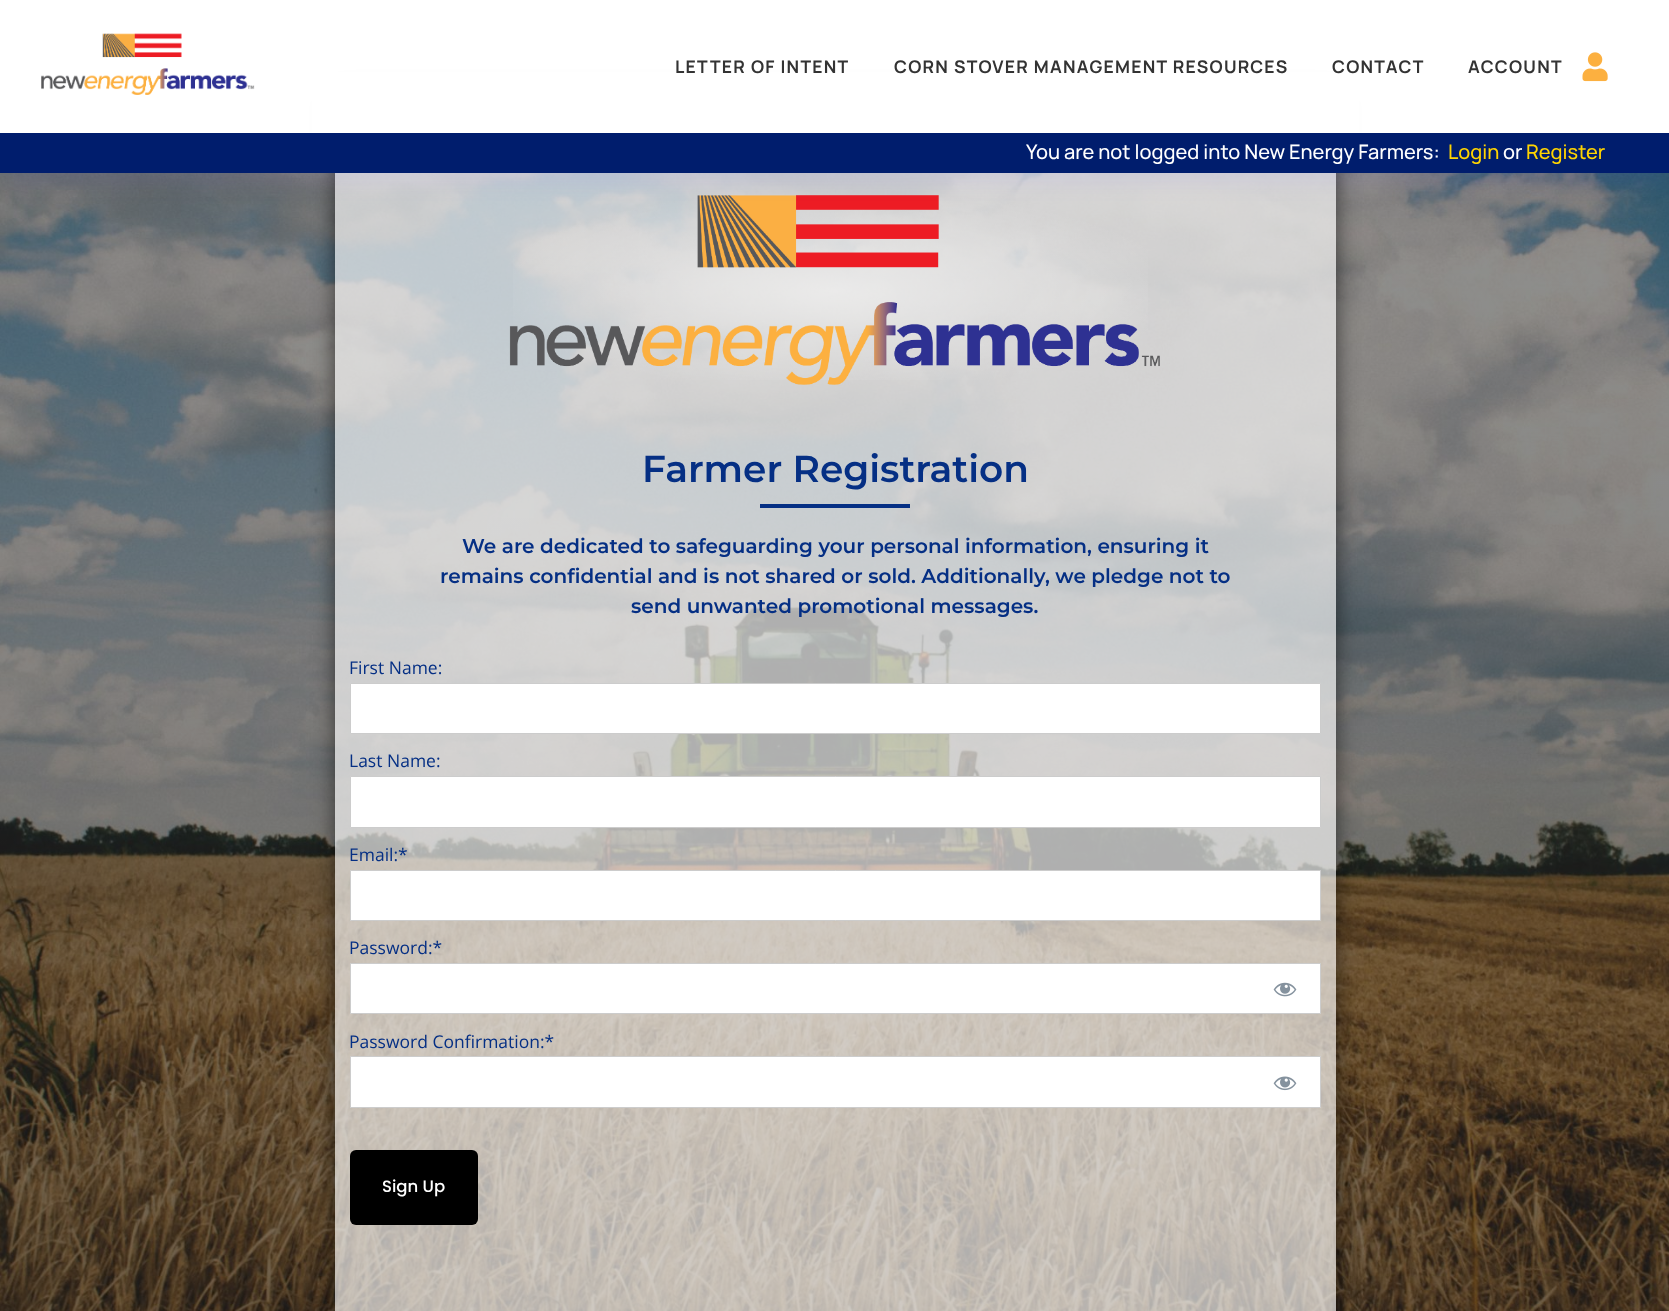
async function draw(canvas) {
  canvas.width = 1669;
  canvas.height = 1311;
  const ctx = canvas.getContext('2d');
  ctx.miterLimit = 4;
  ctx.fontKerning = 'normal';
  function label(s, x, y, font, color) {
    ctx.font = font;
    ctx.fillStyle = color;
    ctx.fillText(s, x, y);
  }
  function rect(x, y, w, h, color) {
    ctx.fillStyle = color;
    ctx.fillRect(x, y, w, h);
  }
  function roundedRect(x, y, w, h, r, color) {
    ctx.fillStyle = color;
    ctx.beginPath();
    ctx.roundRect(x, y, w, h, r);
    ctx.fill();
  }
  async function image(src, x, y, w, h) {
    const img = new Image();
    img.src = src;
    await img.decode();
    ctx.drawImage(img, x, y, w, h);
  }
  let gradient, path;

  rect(0, 0, 1669, 1311, '#fff');
  await image('assets/img3.png', 0, 173, 1669, 1138);
  ctx.save();
  path = new Path2D('M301 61H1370V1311H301ZM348 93H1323C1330 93 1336 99 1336 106V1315C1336 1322 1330 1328 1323 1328H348C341 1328 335 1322 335 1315V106C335 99 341 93 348 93Z');
  ctx.clip(path, 'evenodd');
  ctx.fillStyle = '#00000094';
  ctx.filter = 'blur(11px)';
  ctx.beginPath();
  ctx.roundRect(335, 95, 1001, 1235, 13);
  ctx.fill();
  ctx.filter = 'none';
  ctx.restore();
  rect(312, 72, 1047, 61, '#fff');
  await image('assets/img1.png', 41, 33, 214, 62);
  ctx.letterSpacing = '1.25px';
  label('LETTER OF INTENT', 675, 73, 'bold 17.5px Manrope', '#333');
  label('CORN STOVER MANAGEMENT RESOURCES', 894, 73, 'bold 17.5px Manrope', '#333');
  label('CONTACT', 1332, 73, 'bold 17.5px Manrope', '#333');
  label('ACCOUNT', 1468, 73, 'bold 17.5px Manrope', '#333');
  await image('assets/img2.png', 1582, 52, 26, 30);
  rect(335, 173, 1001, 1138, '#ffffffa6');
  gradient = ctx.createRadialGradient(835, 995.52, 0, 835, 995.52, 460);
  gradient.addColorStop(0, '#ffffff80');
  gradient.addColorStop(0.76, '#ffffff00');
  ctx.fillStyle = gradient;
  ctx.beginPath();
  ctx.rect(513, 198, 635, 182);
  ctx.save();
  ctx.clip();
  ctx.scale(1, 134 / 460);
  ctx.fillRect(0, 0, 1669, 4501);
  ctx.restore();
  await image('assets/img4.png', 509, 195, 651, 190);
  ctx.fillStyle = '#6765ff1a';
  ctx.filter = 'blur(11px)';
  ctx.beginPath();
  ctx.rect(8, 155, 1655, 25);
  ctx.fill();
  ctx.filter = 'none';
  rect(0, 133, 1669, 40, '#001d6d');
  ctx.letterSpacing = '0px';
  label('You are not logged into New Energy Farmers:', 1026, 159, '500 20px Manrope', '#fff');
  label('Login', 1448, 159, '500 20px Manrope', '#ffd400');
  label('or', 1503, 159, '500 20px Manrope', '#fff');
  label('Register', 1526, 159, '500 20px Manrope', '#ffd400');
  label('Farmer Registration', 642, 482, '600 37.5px Montserrat', '#052f84');
  rect(760, 504, 150, 4, '#052f84');
  label('We are dedicated to safeguarding your personal information, ensuring it', 462, 553, '600 20px Montserrat', '#052f84');
  label('remains confidential and is not shared or sold. Additionally, we pledge not to', 440, 583, '600 20px Montserrat', '#052f84');
  label('send unwanted promotional messages.', 631, 613, '600 20px Montserrat', '#052f84');
  label('First Name:', 349, 674, '17.5px Open Sans', '#052f84');
  ctx.fillStyle = '#fff';
  ctx.beginPath();
  ctx.rect(350.5, 683.5, 970, 50);
  ctx.fill();
  ctx.strokeStyle = '#ccc';
  ctx.stroke();
  label('Last Name:', 349, 767, '17.5px Open Sans', '#052f84');
  ctx.fillStyle = '#fff';
  ctx.beginPath();
  ctx.rect(350.5, 776.5, 970, 51);
  ctx.fill();
  ctx.stroke();
  label('Email:*', 349, 861, '17.5px Open Sans', '#052f84');
  ctx.fillStyle = '#fff';
  ctx.beginPath();
  ctx.rect(350.5, 870.5, 970, 50);
  ctx.fill();
  ctx.stroke();
  label('Password:*', 349, 954, '17.5px Open Sans', '#052f84');
  ctx.fillStyle = '#fff';
  ctx.beginPath();
  ctx.rect(350.5, 963.5, 970, 50);
  ctx.fill();
  ctx.stroke();
  await image('assets/img5.png', 1273, 982, 24, 15);
  label('Password Confirmation:*', 349, 1048, '17.5px Open Sans', '#052f84');
  ctx.fillStyle = '#fff';
  ctx.beginPath();
  ctx.rect(350.5, 1056.5, 970, 51);
  ctx.fill();
  ctx.stroke();
  await image('assets/img6.png', 1273, 1076, 24, 15);
  roundedRect(350, 1150, 128, 75, 6, '#000');
  label('Sign Up', 382, 1192, '500 16.5px Poppins', '#fff');
}

draw(document.querySelector('canvas'));
